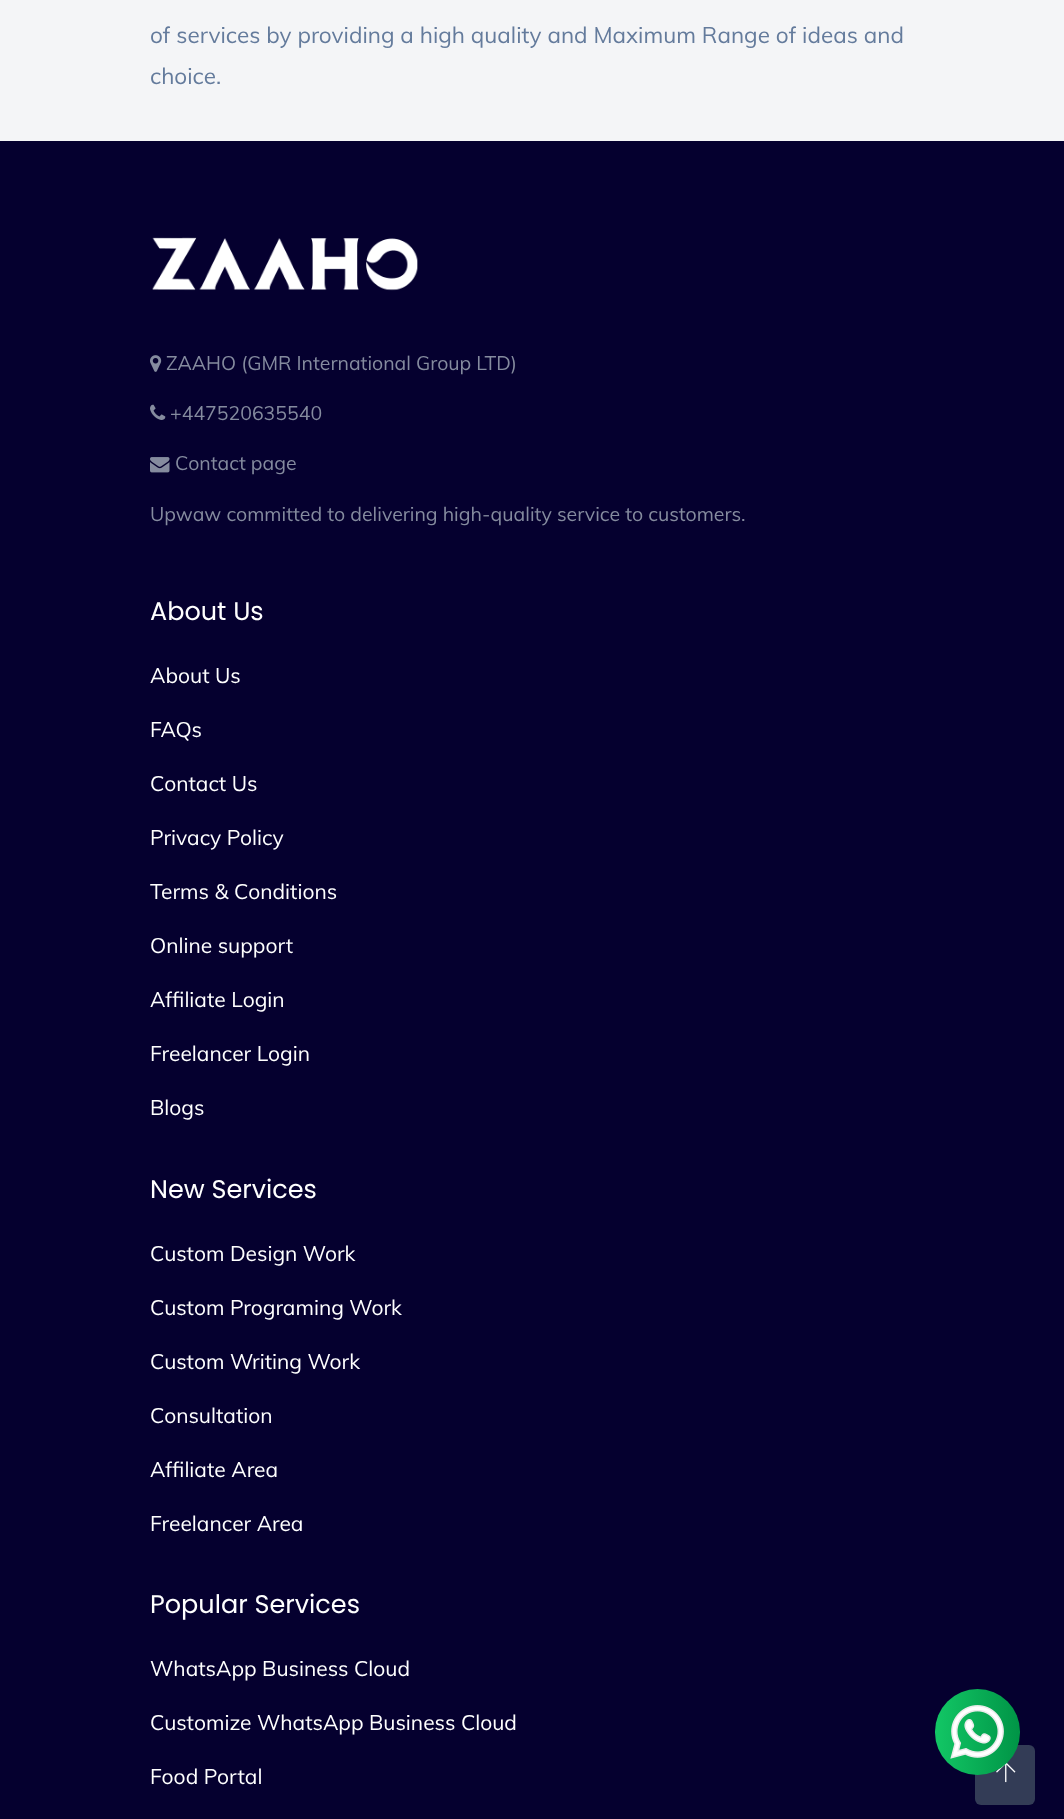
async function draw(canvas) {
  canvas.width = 1064;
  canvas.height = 1819;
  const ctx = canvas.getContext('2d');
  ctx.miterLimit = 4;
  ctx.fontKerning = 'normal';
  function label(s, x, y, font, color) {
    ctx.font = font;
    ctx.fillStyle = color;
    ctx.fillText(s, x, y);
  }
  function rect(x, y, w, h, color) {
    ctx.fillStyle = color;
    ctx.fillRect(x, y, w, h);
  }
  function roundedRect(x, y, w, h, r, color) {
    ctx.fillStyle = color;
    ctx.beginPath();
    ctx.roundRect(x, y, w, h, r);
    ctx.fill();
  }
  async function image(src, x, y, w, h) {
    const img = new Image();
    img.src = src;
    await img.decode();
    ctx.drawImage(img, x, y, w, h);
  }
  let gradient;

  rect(0, 0, 1064, 1819, '#f4f5f7');
  label('of services by providing a high quality and Maximum Range of ideas and', 150, 43, '22.5px Muli', '#647b9c');
  label('choice.', 150, 84, '22.5px Muli', '#647b9c');
  rect(0, 141, 1064, 1678, '#05002f');
  await image('assets/img1.png', 152, 237, 266, 54);
  await image('assets/img2.png', 150, 355, 12, 17);
  label('ZAAHO (GMR International Group LTD)', 166, 370, '19.5px Muli', '#858b9f');
  await image('assets/img3.png', 150, 404, 16, 16);
  label('+447520635540', 170, 420, '19.5px Muli', '#858b9f');
  await image('assets/img4.png', 150, 457, 20, 16);
  label('Contact page', 175, 470, '19.5px Muli', '#858b9f');
  label('Upwaw committed to delivering high-quality service to customers.', 150, 521, '19.5px Muli', '#858b9f');
  label('About Us', 150, 620, '25.5px Poppins', '#fff');
  label('About Us', 150, 683, '21px Muli', '#fff');
  label('FAQs', 150, 737, '21px Muli', '#fff');
  label('Contact Us', 150, 791, '21px Muli', '#fff');
  label('Privacy Policy', 150, 845, '21px Muli', '#fff');
  label('Terms & Conditions', 150, 899, '21px Muli', '#fff');
  label('Online support', 150, 953, '21px Muli', '#fff');
  label('Affiliate Login', 150, 1007, '21px Muli', '#fff');
  label('Freelancer Login', 150, 1061, '21px Muli', '#fff');
  label('Blogs', 150, 1115, '21px Muli', '#fff');
  label('New Services', 150, 1198, '25.5px Poppins', '#fff');
  label('Custom Design Work', 150, 1261, '21px Muli', '#fff');
  label('Custom Programing Work', 150, 1315, '21px Muli', '#fff');
  label('Custom Writing Work', 150, 1369, '21px Muli', '#fff');
  label('Consultation', 150, 1423, '21px Muli', '#fff');
  label('Affiliate Area', 150, 1477, '21px Muli', '#fff');
  label('Freelancer Area', 150, 1531, '21px Muli', '#fff');
  label('Popular Services', 150, 1613, '25.5px Poppins', '#fff');
  label('WhatsApp Business Cloud', 150, 1676, '21px Muli', '#fff');
  label('Customize WhatsApp Business Cloud', 150, 1730, '21px Muli', '#fff');
  label('Food Portal', 150, 1784, '21px Muli', '#fff');
  roundedRect(975, 1745, 60, 60, 6, '#333c56');
  await image('assets/img6.png', 996, 1763, 20, 20);
  gradient = ctx.createLinearGradient(935, 1732, 1020, 1732);
  gradient.addColorStop(0.01, '#12c665');
  gradient.addColorStop(1, '#009446');
  ctx.fillStyle = gradient;
  ctx.beginPath();
  ctx.roundRect(935, 1689, 85, 86, 42.5);
  ctx.fill();
  await image('assets/img5.png', 950, 1705, 54, 54);
}

draw(document.querySelector('canvas'));
